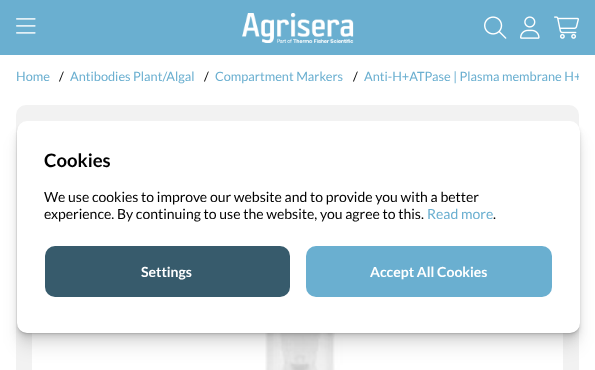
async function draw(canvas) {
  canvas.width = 595;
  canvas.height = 370;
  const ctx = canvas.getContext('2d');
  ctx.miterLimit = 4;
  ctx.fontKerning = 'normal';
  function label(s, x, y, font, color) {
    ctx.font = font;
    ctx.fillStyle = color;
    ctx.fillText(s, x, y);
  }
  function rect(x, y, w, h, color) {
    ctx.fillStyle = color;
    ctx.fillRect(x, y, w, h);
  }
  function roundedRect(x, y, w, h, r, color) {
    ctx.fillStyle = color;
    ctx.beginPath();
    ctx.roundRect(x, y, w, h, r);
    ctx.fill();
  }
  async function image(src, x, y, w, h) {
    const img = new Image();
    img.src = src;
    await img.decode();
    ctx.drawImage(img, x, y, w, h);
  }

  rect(0, 0, 595, 370, '#fff');
  rect(0, 0, 595, 55, '#6aafd0');
  await image('assets/img1.png', 16, 18, 20, 16);
  await image('assets/img2.png', 242, 13, 112, 30);
  await image('assets/img3.png', 484, 16, 23, 23);
  await image('assets/img4.png', 520, 16, 20, 23);
  await image('assets/img5.png', 554, 16, 25, 23);
  label('Home', 16, 81, '12.75px Lato', '#6aafd0');
  label('/', 59, 81, '12.75px Lato', '#000');
  label('Antibodies Plant/Algal', 70, 81, '12.75px Lato', '#6aafd0');
  label('/', 204, 81, '12.75px Lato', '#000');
  label('Compartment Markers', 215, 81, '12.75px Lato', '#6aafd0');
  label('/', 353, 81, '12.75px Lato', '#000');
  ctx.save();
  ctx.beginPath();
  ctx.rect(16, 68, 563, 24);
  ctx.clip();
  label('Anti-H+ATPase | Plasma membrane H+', 364, 81, '12.75px Lato', '#6aafd0');
  ctx.restore();
  roundedRect(16, 105, 563, 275, 10, '#f2f2f2');
  rect(32, 333, 531, 37, '#fff');
  await image('assets/img6.png', 255, 333, 91, 37);
  ctx.fillStyle = '#00000012';
  ctx.filter = 'blur(8px)';
  ctx.beginPath();
  ctx.roundRect(17, 137, 563, 212, 10);
  ctx.fill();
  ctx.filter = 'none';
  ctx.filter = 'blur(4px)';
  ctx.beginPath();
  ctx.roundRect(17, 129, 563, 212, 10);
  ctx.fill();
  ctx.filter = 'none';
  ctx.filter = 'blur(2px)';
  ctx.beginPath();
  ctx.roundRect(17, 125, 563, 212, 10);
  ctx.fill();
  ctx.filter = 'none';
  ctx.filter = 'blur(1px)';
  ctx.beginPath();
  ctx.roundRect(17, 123, 563, 212, 10);
  ctx.fill();
  ctx.filter = 'none';
  ctx.filter = 'blur(0.5px)';
  ctx.beginPath();
  ctx.roundRect(17, 122, 563, 212, 10);
  ctx.fill();
  ctx.filter = 'none';
  roundedRect(17, 121, 563, 212, 10, '#fff');
  label('Cookies', 44, 167, 'bold 18.5px Lato', '#000');
  label('We use cookies to improve our website and to provide you with a better', 44, 202, '14px Lato', '#000');
  label('experience. By continuing to use the website, you agree to this.', 44, 219, '14px Lato', '#000');
  label('Read more', 427, 219, '14px Lato', '#6aafd0');
  label('.', 493, 219, '14px Lato', '#000');
  roundedRect(45, 246, 245, 51, 10, '#375b6c');
  label('Settings', 141, 277, 'bold 14px Lato', '#fff');
  roundedRect(306, 246, 246, 51, 10, '#6aafd0');
  label('Accept All Cookies', 370, 277, 'bold 14px Lato', '#fff');
}

draw(document.querySelector('canvas'));
